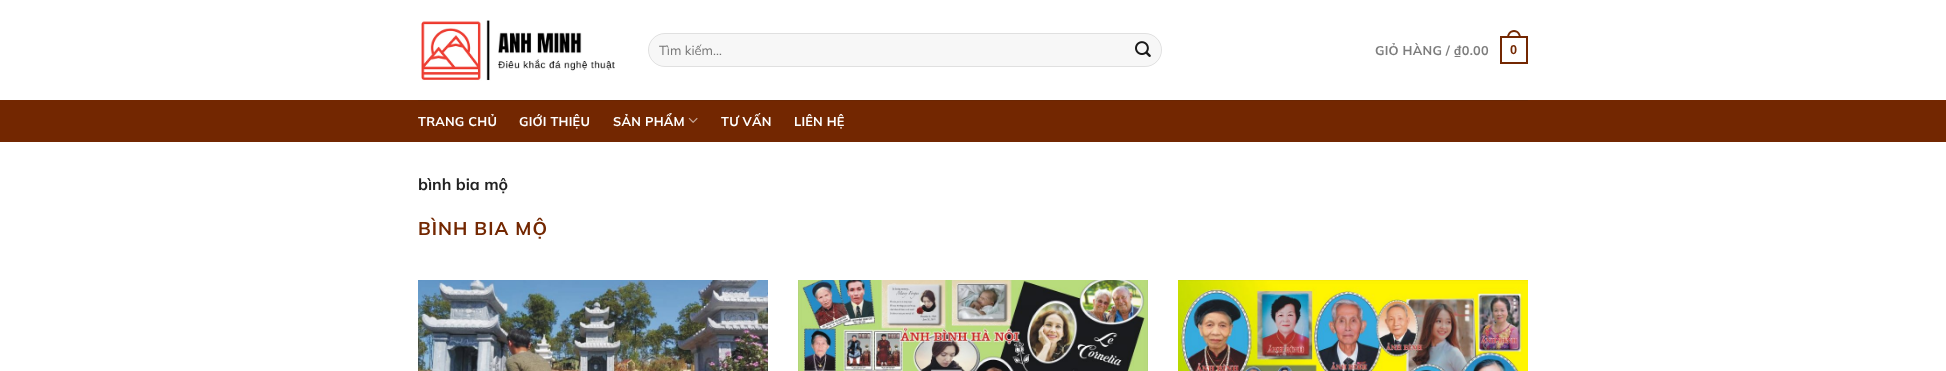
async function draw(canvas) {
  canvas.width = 1946;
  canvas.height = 371;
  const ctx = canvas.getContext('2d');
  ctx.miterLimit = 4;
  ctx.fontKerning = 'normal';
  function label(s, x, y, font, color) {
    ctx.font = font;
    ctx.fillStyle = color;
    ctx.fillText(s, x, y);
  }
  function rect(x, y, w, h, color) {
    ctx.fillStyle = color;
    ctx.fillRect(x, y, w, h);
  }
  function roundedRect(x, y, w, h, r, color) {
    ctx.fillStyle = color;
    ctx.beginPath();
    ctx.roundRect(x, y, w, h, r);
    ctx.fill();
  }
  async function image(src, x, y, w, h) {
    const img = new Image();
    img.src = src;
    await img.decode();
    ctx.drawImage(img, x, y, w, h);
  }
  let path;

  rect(0, 0, 1946, 371, '#fff');
  await image('assets/img1.png', 421, 20, 194, 61);
  roundedRect(648, 33, 514, 34, 17, '#f7f7f7');
  ctx.beginPath();
  ctx.roundRect(648.5, 33.5, 513, 33, 16.5);
  ctx.strokeStyle = '#00000017';
  ctx.stroke();
  label('Tìm kiếm…', 659, 55, '13px Mulish', '#757575');
  await image('assets/img2.png', 1135, 41, 16, 16);
  ctx.letterSpacing = '0.25px';
  label('GIỎ HÀNG / ₫0.00', 1375, 55, 'bold 12.75px Mulish', '#7d7d7d');
  ctx.strokeStyle = '#732701';
  ctx.lineWidth = 2;
  ctx.strokeRect(1501, 37, 26, 26);
  ctx.fillStyle = '#732701';
  path = new Path2D('M1514 30C1518.5 30 1521 34 1521 38H1507C1507 34 1509.5 30 1514 30ZM1514 32C1517.5 32 1519 35 1519 38H1509C1509 35 1510.5 32 1514 32Z');
  ctx.fill(path, 'evenodd');
  label('0', 1510, 54, 'bold 12.75px Liberation Sans', '#732701');
  rect(0, 100, 1946, 42, '#732701');
  rect(418, 100, 1110, 1, '#6a2603');
  label('TRANG CHỦ', 418, 126, 'bold 12.75px Mulish', '#fff');
  label('GIỚI THIỆU', 519, 126, 'bold 12.75px Mulish', '#fff');
  label('SẢN PHẨM', 613, 126, 'bold 12.75px Mulish', '#fff');
  await image('assets/img3.png', 688, 117, 10, 6);
  label('TƯ VẤN', 721, 126, 'bold 12.75px Mulish', '#fff');
  label('LIÊN HỆ', 794, 126, 'bold 12.75px Mulish', '#fff');
  ctx.letterSpacing = '0px';
  label('bình bia mộ', 418, 190, 'bold 16px Mulish', '#222');
  ctx.letterSpacing = '1px';
  label('BÌNH BIA MỘ', 418, 235, 'bold 18.5px Mulish', '#732701');
  await image('assets/img4.png', 418, 280, 350, 91);
  await image('assets/img5.png', 798, 280, 350, 91);
  await image('assets/img6.png', 1178, 280, 350, 91);
}

draw(document.querySelector('canvas'));
